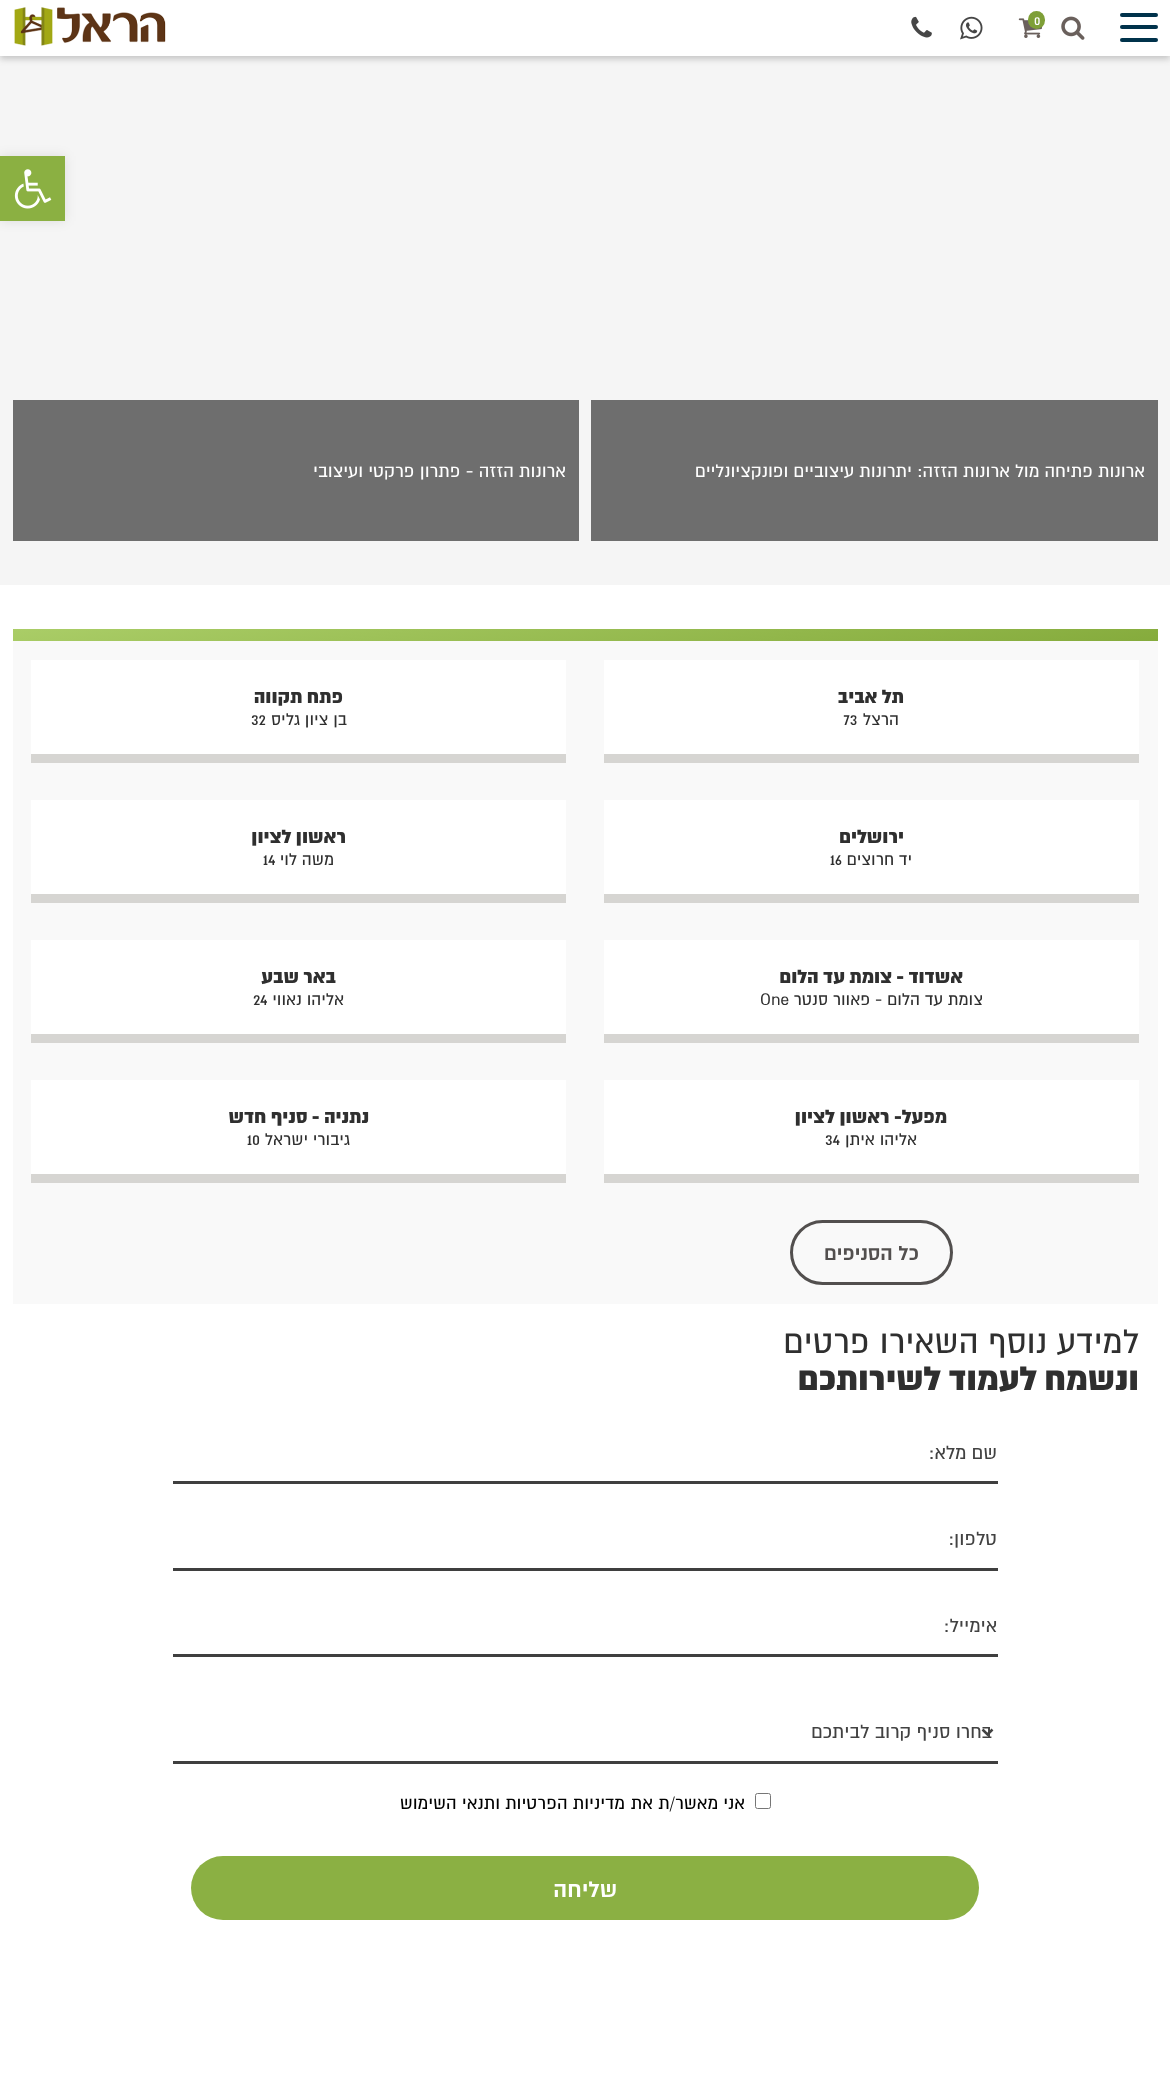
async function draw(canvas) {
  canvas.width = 1170;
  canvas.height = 2097;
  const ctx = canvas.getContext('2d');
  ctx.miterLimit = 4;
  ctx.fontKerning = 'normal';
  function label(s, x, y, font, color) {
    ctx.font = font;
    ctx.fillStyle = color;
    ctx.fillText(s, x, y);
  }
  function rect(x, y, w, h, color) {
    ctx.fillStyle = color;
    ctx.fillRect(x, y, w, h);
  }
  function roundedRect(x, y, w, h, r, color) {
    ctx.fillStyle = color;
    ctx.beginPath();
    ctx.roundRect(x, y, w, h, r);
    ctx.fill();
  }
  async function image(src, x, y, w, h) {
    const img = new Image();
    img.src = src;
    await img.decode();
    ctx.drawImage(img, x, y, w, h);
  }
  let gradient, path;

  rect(0, 0, 1170, 2097, '#fff');
  rect(0, 56, 1170, 529, '#f5f5f5');
  ctx.fillStyle = '#32323240';
  ctx.filter = 'blur(3px)';
  ctx.beginPath();
  ctx.rect(0, 3, 1170, 56);
  ctx.fill();
  ctx.filter = 'none';
  rect(0, 0, 1170, 56, '#fff');
  roundedRect(1120, 13, 38, 4, 2, '#00324b');
  roundedRect(1120, 25, 38, 4, 2, '#00324b');
  roundedRect(1120, 38, 38, 4, 2, '#00324b');
  await image('assets/img1.png', 1061, 16, 24, 24);
  await image('assets/img2.png', 1018, 18, 24, 20);
  roundedRect(1028, 11, 17, 18, 8.5, '#7e9f37');
  label('0', 1034, 25, '15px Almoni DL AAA', '#fff');
  await image('assets/img3.png', 960, 16, 23, 24);
  await image('assets/img4.png', 911, 16, 21, 22);
  await image('assets/img5.png', 14, 7, 152, 39);
  ctx.fillStyle = '#0000001a';
  ctx.filter = 'blur(6px)';
  ctx.beginPath();
  ctx.rect(0, 156, 65, 65);
  ctx.fill();
  ctx.filter = 'none';
  rect(0, 156, 65, 65, '#8bb042');
  await image('assets/img6.png', 14, 169, 38, 40);
  rect(591, 400, 567, 141, '#6e6e6e');
  ctx.direction = 'rtl';
  label('ארונות פתיחה מול ארונות הזזה: יתרונות עיצוביים ופונקציונליים', 1145, 477, '20px Almoni DL AAA', '#fff');
  rect(13, 400, 566, 141, '#6e6e6e');
  label('ארונות הזזה - פתרון פרקטי ועיצובי', 566, 477, '20px Almoni DL AAA', '#fff');
  gradient = ctx.createLinearGradient(600, 730, 570, 540);
  gradient.addColorStop(0, '#85ab3c');
  gradient.addColorStop(1, '#aacd67');
  ctx.fillStyle = gradient;
  ctx.fillRect(13, 629, 1145, 12);
  rect(13, 641, 1145, 663, '#f9f9f9');
  rect(604, 660, 535, 94, '#fff');
  rect(604, 754, 535, 9, '#d6d5d2');
  label('תל אביב', 904, 703, '900 21.25px Almoni DL AAA', '#2f2f2f');
  label('הרצל', 899, 725, '18.75px Almoni DL AAA', '#2f2f2f');
  ctx.direction = 'ltr';
  label('73', 843, 725, '18.75px Almoni DL AAA', '#2f2f2f');
  rect(31, 660, 535, 94, '#fff');
  rect(31, 754, 535, 9, '#d6d5d2');
  ctx.direction = 'rtl';
  label('פתח תקווה', 343, 703, '900 21.25px Almoni DL AAA', '#2f2f2f');
  label('בן ציון גליס', 347, 725, '18.75px Almoni DL AAA', '#2f2f2f');
  ctx.direction = 'ltr';
  label('32', 251, 725, '18.75px Almoni DL AAA', '#2f2f2f');
  rect(604, 800, 535, 94, '#fff');
  rect(604, 894, 535, 9, '#d6d5d2');
  ctx.direction = 'rtl';
  label('ירושלים', 904, 843, '900 21.25px Almoni DL AAA', '#2f2f2f');
  label('יד חרוצים', 912, 865, '18.75px Almoni DL AAA', '#2f2f2f');
  ctx.direction = 'ltr';
  label('16', 830, 865, '18.75px Almoni DL AAA', '#2f2f2f');
  rect(31, 800, 535, 94, '#fff');
  rect(31, 894, 535, 9, '#d6d5d2');
  ctx.direction = 'rtl';
  label('ראשון לציון', 346, 843, '900 21.25px Almoni DL AAA', '#2f2f2f');
  label('משה לוי', 334, 865, '18.75px Almoni DL AAA', '#2f2f2f');
  ctx.direction = 'ltr';
  label('14', 263, 865, '18.75px Almoni DL AAA', '#2f2f2f');
  rect(604, 940, 535, 94, '#fff');
  rect(604, 1034, 535, 9, '#d6d5d2');
  ctx.direction = 'rtl';
  label('אשדוד - צומת עד הלום', 963, 983, '900 21.25px Almoni DL AAA', '#2f2f2f');
  label('צומת עד הלום - פאוור סנטר', 983, 1005, '18.75px Almoni DL AAA', '#2f2f2f');
  ctx.direction = 'ltr';
  label('One', 760, 1005, '18.75px Almoni DL AAA', '#2f2f2f');
  rect(31, 940, 535, 94, '#fff');
  rect(31, 1034, 535, 9, '#d6d5d2');
  ctx.direction = 'rtl';
  label('באר שבע', 336, 983, '900 21.25px Almoni DL AAA', '#2f2f2f');
  label('אליהו נאווי', 344, 1005, '18.75px Almoni DL AAA', '#2f2f2f');
  ctx.direction = 'ltr';
  label('24', 253, 1005, '18.75px Almoni DL AAA', '#2f2f2f');
  rect(604, 1080, 535, 94, '#fff');
  rect(604, 1174, 535, 9, '#d6d5d2');
  ctx.direction = 'rtl';
  label('מפעל- ראשון לציון', 947, 1123, '900 21.25px Almoni DL AAA', '#2f2f2f');
  label('אליהו איתן', 917, 1145, '18.75px Almoni DL AAA', '#2f2f2f');
  ctx.direction = 'ltr';
  label('34', 825, 1145, '18.75px Almoni DL AAA', '#2f2f2f');
  rect(31, 1080, 535, 94, '#fff');
  rect(31, 1174, 535, 9, '#d6d5d2');
  ctx.direction = 'rtl';
  label('נתניה - סניף חדש', 369, 1123, '900 21.25px Almoni DL AAA', '#2f2f2f');
  label('גיבורי ישראל', 350, 1145, '18.75px Almoni DL AAA', '#2f2f2f');
  ctx.direction = 'ltr';
  label('10', 247, 1145, '18.75px Almoni DL AAA', '#2f2f2f');
  ctx.beginPath();
  ctx.roundRect(791.5, 1221.5, 160, 62, 31);
  ctx.strokeStyle = '#524f4e';
  ctx.lineWidth = 3;
  ctx.stroke();
  ctx.direction = 'rtl';
  label('כל הסניפים', 919, 1260, 'bold 22.5px Almoni DL AAA', '#524f4e');
  label('למידע נוסף השאירו פרטים', 1139, 1353, '37.5px Almoni DL AAA', '#2f2f2f');
  label('ונשמח לעמוד לשירותכם', 1139, 1390, '900 37.5px Almoni DL AAA', '#2f2f2f');
  rect(173, 1481, 825, 3, '#3f3f3f');
  label('שם מלא:', 997, 1459, '21.25px Almoni DL AAA', '#424242');
  rect(173, 1568, 825, 3, '#3f3f3f');
  label('טלפון:', 997, 1545, '21.25px Almoni DL AAA', '#424242');
  rect(173, 1654, 825, 3, '#3f3f3f');
  label('אימייל:', 997, 1632, '21.25px Almoni DL AAA', '#424242');
  rect(173, 1761, 825, 3, '#3f3f3f');
  path = new Path2D('M982.5 1729.5L987.5 1734.5L992.5 1729.5');
  ctx.strokeStyle = '#424242';
  ctx.lineWidth = 2.5;
  ctx.stroke(path);
  label('בחרו סניף קרוב לביתכם', 992, 1738, '21.25px Almoni DL AAA', '#424242');
  ctx.beginPath();
  ctx.roundRect(755.5, 1793.5, 15, 15, 2);
  ctx.strokeStyle = '#767676';
  ctx.lineWidth = 1;
  ctx.stroke();
  label('אני מאשר/ת את', 745, 1809, '20px Almoni DL AAA', '#000');
  label('מדיניות הפרטיות', 625, 1809, '20px Almoni DL AAA', '#000');
  label('ותנאי השימוש', 500, 1809, '20px Almoni DL AAA', '#000');
  roundedRect(191, 1856, 788, 64, 32, '#8bb043');
  label('שליחה', 617, 1897, 'bold 25px Almoni DL AAA', '#fff');
}

draw(document.querySelector('canvas'));
